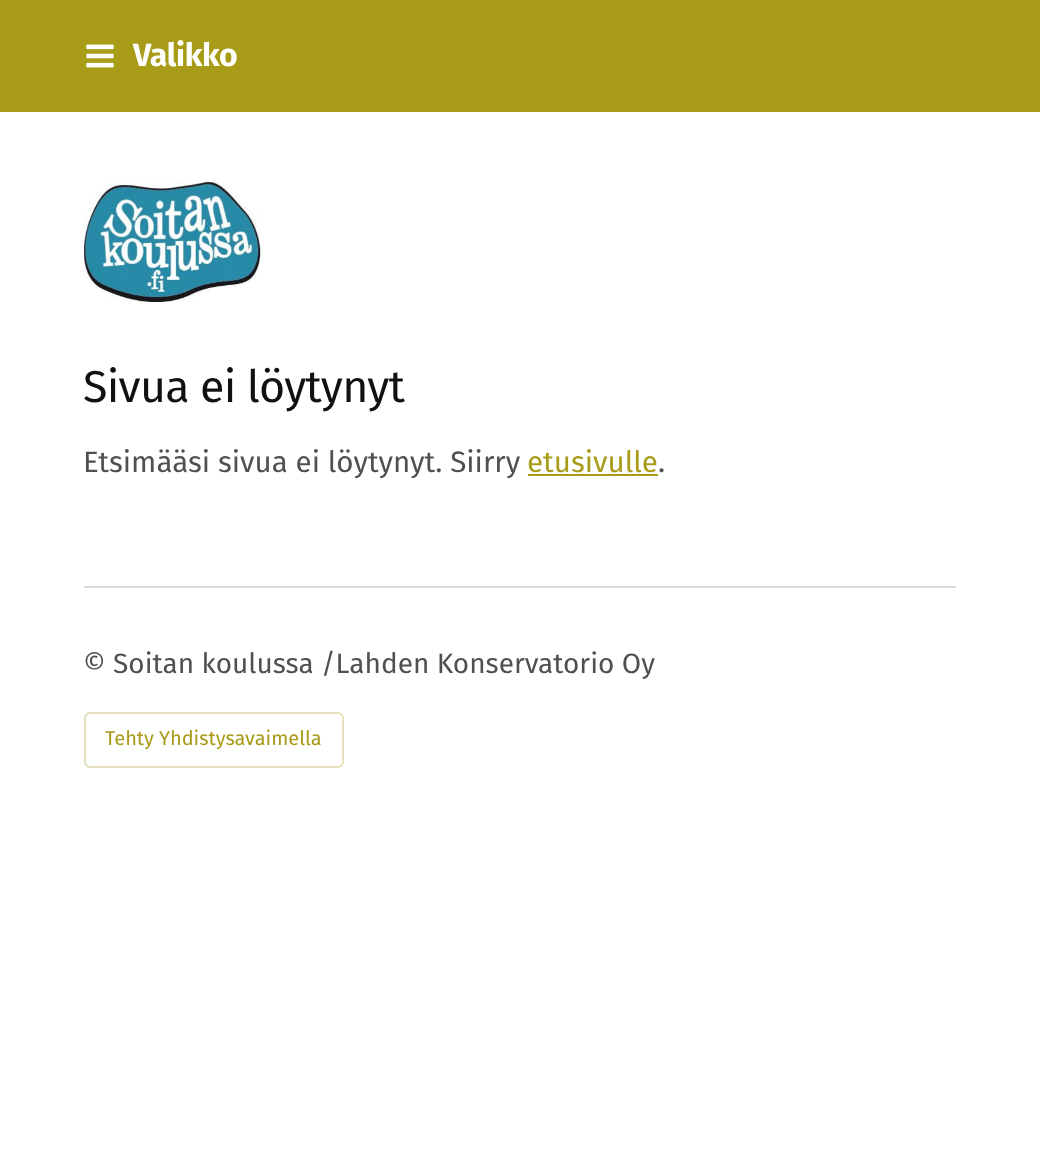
async function draw(canvas) {
  canvas.width = 1040;
  canvas.height = 1165;
  const ctx = canvas.getContext('2d');
  ctx.miterLimit = 4;
  ctx.fontKerning = 'normal';
  function label(s, x, y, font, color) {
    ctx.font = font;
    ctx.fillStyle = color;
    ctx.fillText(s, x, y);
  }
  function rect(x, y, w, h, color) {
    ctx.fillStyle = color;
    ctx.fillRect(x, y, w, h);
  }
  async function image(src, x, y, w, h) {
    const img = new Image();
    img.src = src;
    await img.decode();
    ctx.drawImage(img, x, y, w, h);
  }

  rect(0, 0, 1040, 1165, '#fff');
  rect(0, 0, 1040, 112, '#a89b18');
  await image('assets/img1.png', 86, 44, 28, 24);
  ctx.letterSpacing = '-0.25px';
  label('Valikko', 133, 66, 'bold 32px Fira Sans', '#fff');
  await image('assets/img2.png', 84, 182, 177, 120);
  ctx.letterSpacing = '-0.7px';
  label('Sivua ei löytynyt', 83, 402, '44.75px Fira Sans', '#111');
  ctx.letterSpacing = '0px';
  label('Etsimääsi sivua ei löytynyt. Siirry', 83, 472, '29.5px Fira Sans', '#524f4f');
  label('etusivulle', 527, 472, '29.5px Fira Sans', '#a89b18');
  rect(528, 474, 130, 2, '#a89b18');
  label('.', 658, 472, '29.5px Fira Sans', '#524f4f');
  rect(84, 586, 872, 2, '#d9d9d9');
  label('© Soitan koulussa /Lahden Konservatorio Oy', 83, 673, '28px Fira Sans', '#524f4f');
  ctx.beginPath();
  ctx.roundRect(85, 713, 258, 54, 5);
  ctx.strokeStyle = '#e5e1ba';
  ctx.lineWidth = 2;
  ctx.stroke();
  label('Tehty Yhdistysavaimella', 105, 745, '20px Fira Sans', '#a89b18');
}

draw(document.querySelector('canvas'));
